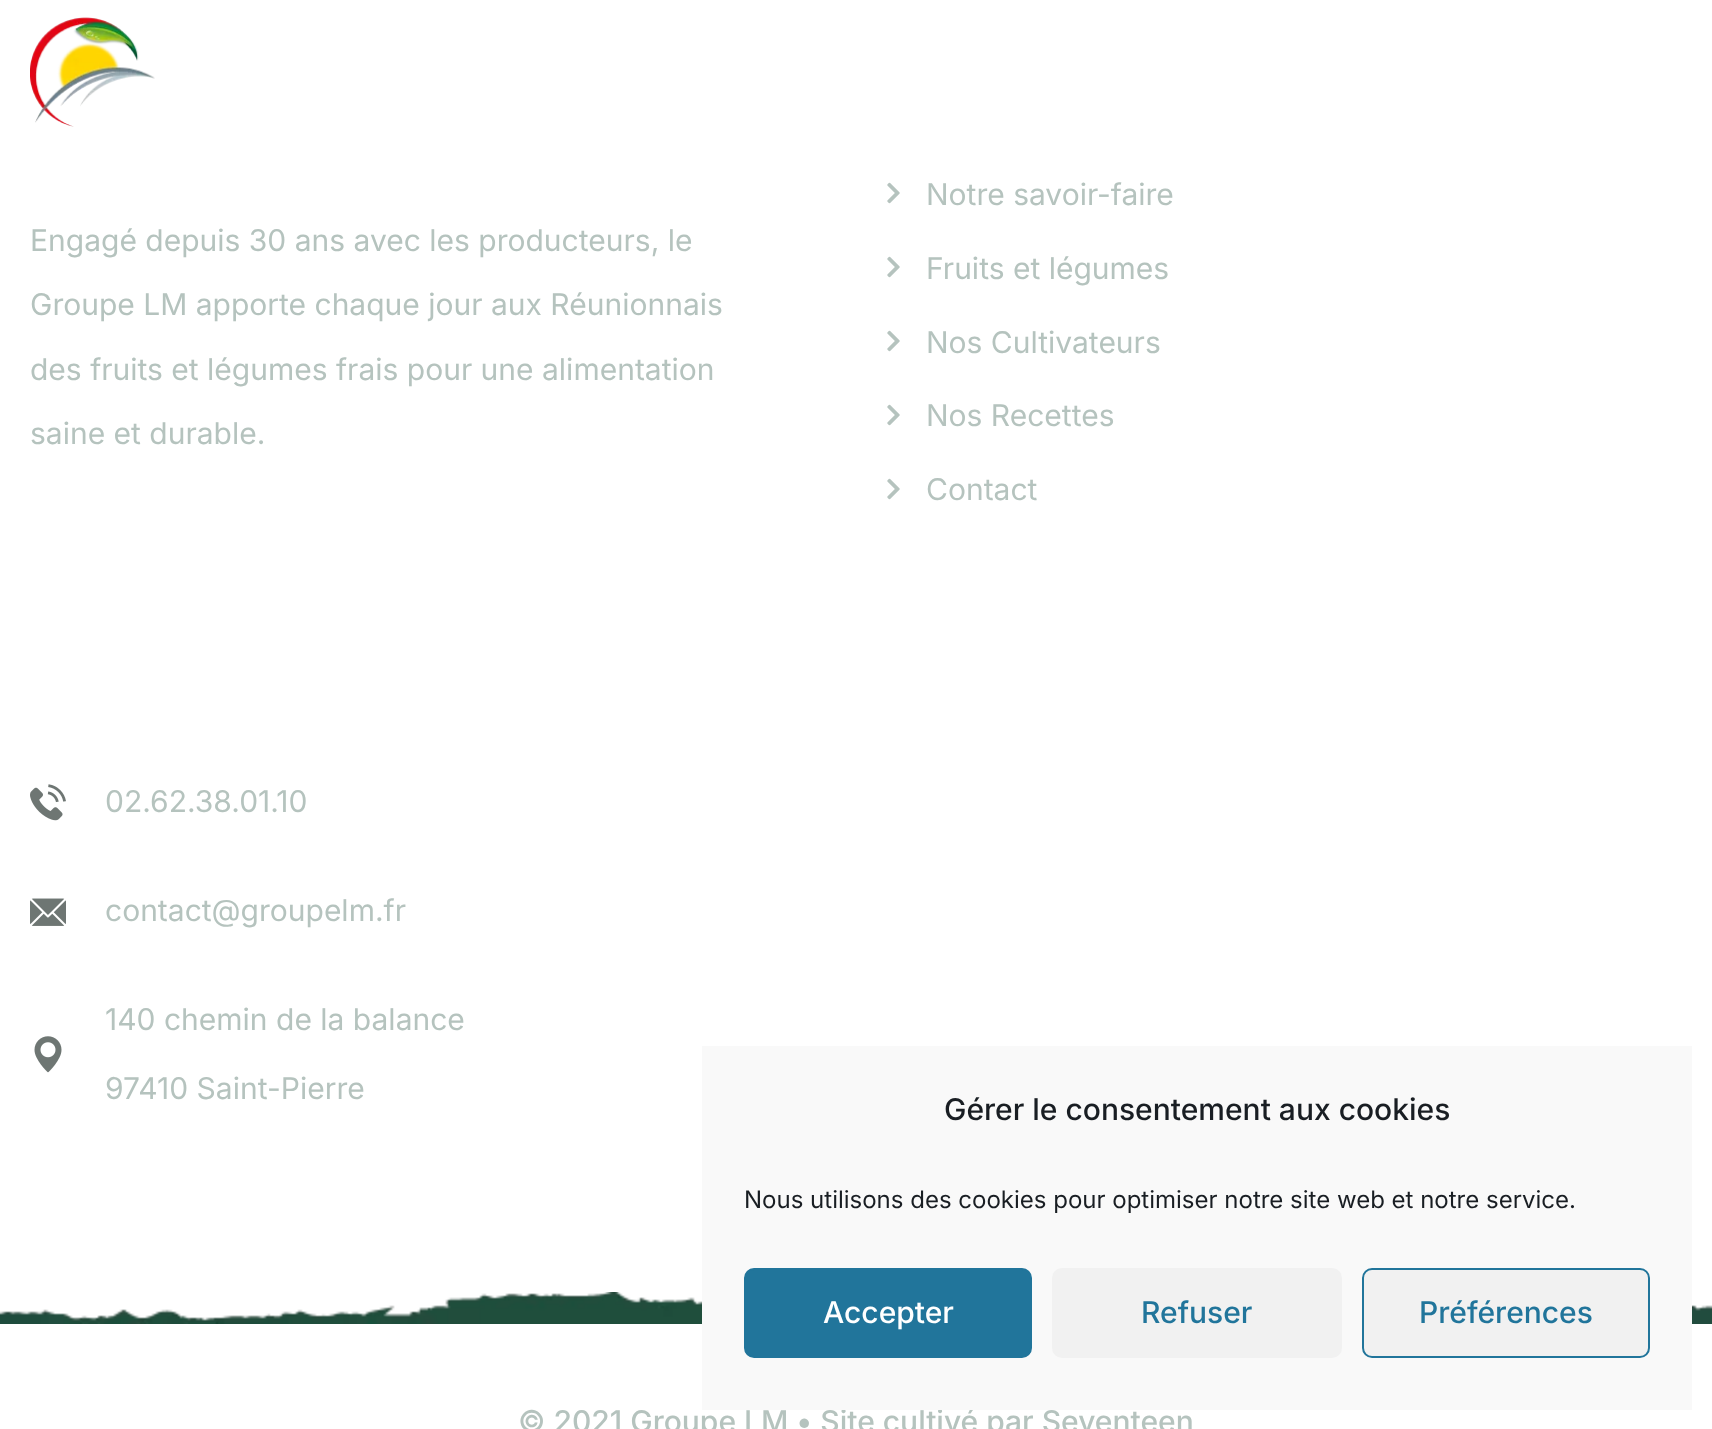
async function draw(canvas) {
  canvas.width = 1712;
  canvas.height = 1429;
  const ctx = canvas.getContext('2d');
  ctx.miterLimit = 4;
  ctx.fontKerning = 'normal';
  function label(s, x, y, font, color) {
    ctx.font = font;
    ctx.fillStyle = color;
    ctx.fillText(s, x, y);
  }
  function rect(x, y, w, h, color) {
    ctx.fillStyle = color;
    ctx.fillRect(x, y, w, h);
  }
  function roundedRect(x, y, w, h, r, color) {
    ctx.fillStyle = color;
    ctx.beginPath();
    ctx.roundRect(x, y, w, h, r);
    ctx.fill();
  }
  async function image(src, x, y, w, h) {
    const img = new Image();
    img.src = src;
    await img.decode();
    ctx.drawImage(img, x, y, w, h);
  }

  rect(0, 0, 1712, 1429, '#fff');
  await image('assets/img1.png', 30, 17, 125, 110);
  label('Engagé depuis 30 ans avec les producteurs, le', 30, 251, '30px Inter', '#b5c3be');
  label('Groupe LM apporte chaque jour aux Réunionnais', 30, 315, '30px Inter', '#b5c3be');
  label('des fruits et légumes frais pour une alimentation', 30, 380, '30px Inter', '#b5c3be');
  label('saine et durable.', 30, 444, '30px Inter', '#b5c3be');
  await image('assets/img2.png', 887, 182, 13, 22);
  label('Notre savoir-faire', 926, 205, '30px Inter', '#b5c3be');
  await image('assets/img2.png', 887, 256, 13, 22);
  label('Fruits et légumes', 926, 279, '30px Inter', '#b5c3be');
  await image('assets/img2.png', 887, 330, 13, 22);
  label('Nos Cultivateurs', 926, 353, '30px Inter', '#b5c3be');
  await image('assets/img2.png', 887, 404, 13, 22);
  label('Nos Recettes', 926, 426, '30px Inter', '#b5c3be');
  await image('assets/img2.png', 887, 478, 13, 22);
  label('Contact', 926, 500, '30px Inter', '#b5c3be');
  await image('assets/img3.png', 30, 784, 36, 37);
  label('02.62.38.01.10', 105, 812, '30px Inter', '#b5c3be');
  await image('assets/img4.png', 30, 898, 36, 28);
  label('contact@groupelm.fr', 105, 921, '30px Inter', '#b5c3be');
  await image('assets/img5.png', 34, 1036, 28, 37);
  label('140 chemin de la balance', 105, 1030, '30px Inter', '#b5c3be');
  label('97410 Saint-Pierre', 105, 1099, '30px Inter', '#b5c3be');
  await image('assets/img6.png', 0, 1292, 1712, 32);
  label('© 2021 Groupe LM • Site cultivé par Seventeen', 518, 1432, '500 30px Inter', '#b5c3be');
  rect(702, 1046, 990, 364, '#f9f9f9');
  label('Gérer le consentement aux cookies', 944, 1120, '500 30px Inter', '#191e23');
  label('Nous utilisons des cookies pour optimiser notre site web et notre service.', 744, 1208, '24px Inter', '#191e23');
  ctx.fillStyle = '#21759b';
  ctx.beginPath();
  ctx.roundRect(745, 1269, 286, 88, 9);
  ctx.fill();
  ctx.strokeStyle = '#21759b';
  ctx.lineWidth = 2;
  ctx.stroke();
  label('Accepter', 823, 1323, '500 30px Inter', '#fff');
  roundedRect(1052, 1268, 290, 90, 10, '#f1f1f1');
  label('Refuser', 1141, 1323, '500 30px Inter', '#21759b');
  ctx.fillStyle = '#f1f1f1';
  ctx.beginPath();
  ctx.roundRect(1363, 1269, 286, 88, 9);
  ctx.fill();
  ctx.stroke();
  label('Préférences', 1419, 1323, '500 30px Inter', '#21759b');
}

draw(document.querySelector('canvas'));
